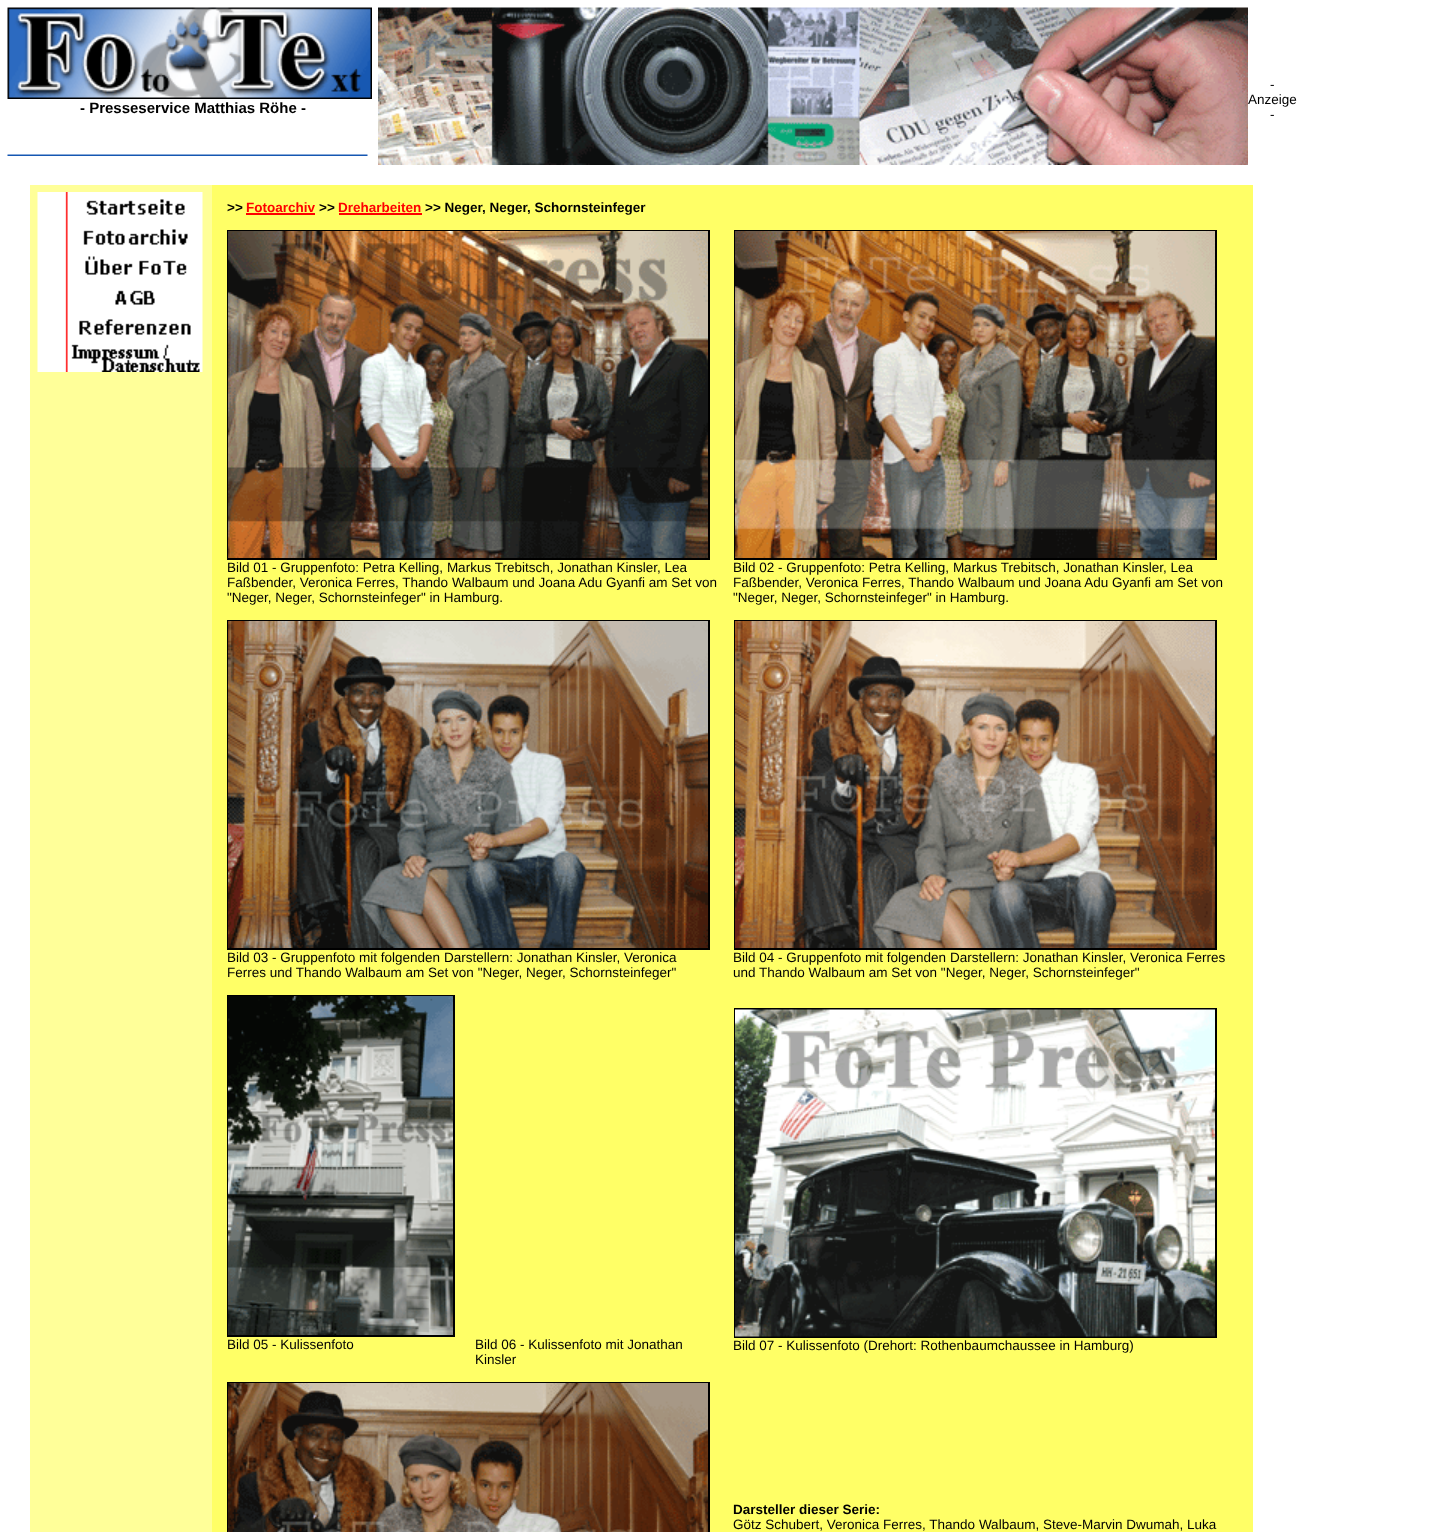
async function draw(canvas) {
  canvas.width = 1449;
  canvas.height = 1532;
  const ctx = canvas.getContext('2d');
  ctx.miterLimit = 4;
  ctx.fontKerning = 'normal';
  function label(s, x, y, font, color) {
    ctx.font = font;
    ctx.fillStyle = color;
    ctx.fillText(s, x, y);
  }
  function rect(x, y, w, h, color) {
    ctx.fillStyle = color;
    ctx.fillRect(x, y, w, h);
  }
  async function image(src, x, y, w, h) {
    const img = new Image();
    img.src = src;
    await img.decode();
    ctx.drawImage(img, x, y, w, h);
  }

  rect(0, 0, 1449, 1532, '#fff');
  await image('assets/img1.png', 7, 7, 365, 92);
  label('- Presseservice Matthias Röhe -', 80, 113, 'bold 15px Liberation Sans', '#000');
  await image('assets/img2.png', 7, 154, 361, 2);
  await image('assets/img3.png', 378, 7, 870, 158);
  label('-', 1270, 89, '13.5px Liberation Sans', '#000');
  label('Anzeige', 1248, 104, '13.5px Liberation Sans', '#000');
  label('-', 1270, 119, '13.5px Liberation Sans', '#000');
  rect(30, 185, 182, 1347, '#ff9');
  await image('assets/img4.png', 37, 192, 166, 30);
  await image('assets/img5.png', 37, 222, 166, 30);
  await image('assets/img6.png', 37, 252, 166, 30);
  await image('assets/img7.png', 37, 282, 166, 30);
  await image('assets/img8.png', 37, 312, 166, 30);
  await image('assets/img9.png', 37, 342, 166, 30);
  rect(212, 185, 1041, 1347, '#ff6');
  label('>>', 227, 212, 'bold 13.5px Liberation Sans', '#000');
  label('Fotoarchiv', 246, 212, 'bold 13.5px Liberation Sans', '#f00');
  rect(246, 213, 69, 2, '#f00');
  label('>>', 319, 212, 'bold 13.5px Liberation Sans', '#000');
  label('Dreharbeiten', 338, 212, 'bold 13.5px Liberation Sans', '#f00');
  rect(339, 213, 83, 2, '#f00');
  label('>> Neger, Neger, Schornsteinfeger', 425, 212, 'bold 13.5px Liberation Sans', '#000');
  ctx.strokeStyle = '#000';
  ctx.lineWidth = 2;
  ctx.strokeRect(228, 231, 481, 328);
  await image('assets/img10.png', 228, 231, 480, 327);
  label('Bild 01 - Gruppenfoto: Petra Kelling, Markus Trebitsch, Jonathan Kinsler, Lea', 227, 572, '13.5px Liberation Sans', '#000');
  label('Faßbender, Veronica Ferres, Thando Walbaum und Joana Adu Gyanfi am Set von', 227, 587, '13.5px Liberation Sans', '#000');
  label('"Neger, Neger, Schornsteinfeger" in Hamburg.', 227, 602, '13.5px Liberation Sans', '#000');
  ctx.strokeRect(735, 231, 481, 328);
  await image('assets/img11.png', 735, 231, 480, 327);
  label('Bild 02 - Gruppenfoto: Petra Kelling, Markus Trebitsch, Jonathan Kinsler, Lea', 733, 572, '13.5px Liberation Sans', '#000');
  label('Faßbender, Veronica Ferres, Thando Walbaum und Joana Adu Gyanfi am Set von', 733, 587, '13.5px Liberation Sans', '#000');
  label('"Neger, Neger, Schornsteinfeger" in Hamburg.', 733, 602, '13.5px Liberation Sans', '#000');
  ctx.strokeRect(228, 621, 481, 328);
  await image('assets/img12.png', 228, 621, 480, 327);
  label('Bild 03 - Gruppenfoto mit folgenden Darstellern: Jonathan Kinsler, Veronica', 227, 962, '13.5px Liberation Sans', '#000');
  label('Ferres und Thando Walbaum am Set von "Neger, Neger, Schornsteinfeger"', 227, 977, '13.5px Liberation Sans', '#000');
  ctx.strokeRect(735, 621, 481, 328);
  await image('assets/img13.png', 735, 621, 480, 327);
  label('Bild 04 - Gruppenfoto mit folgenden Darstellern: Jonathan Kinsler, Veronica Ferres', 733, 962, '13.5px Liberation Sans', '#000');
  label('und Thando Walbaum am Set von "Neger, Neger, Schornsteinfeger"', 733, 977, '13.5px Liberation Sans', '#000');
  ctx.strokeRect(228, 996, 226, 340);
  await image('assets/img14.png', 228, 996, 225, 339);
  label('Bild 05 - Kulissenfoto', 227, 1349, '13.5px Liberation Sans', '#000');
  label('Bild 06 - Kulissenfoto mit Jonathan', 475, 1349, '13.5px Liberation Sans', '#000');
  label('Kinsler', 475, 1364, '13.5px Liberation Sans', '#000');
  ctx.strokeRect(735, 1009, 481, 328);
  await image('assets/img15.png', 735, 1009, 480, 328);
  label('Bild 07 - Kulissenfoto (Drehort: Rothenbaumchaussee in Hamburg)', 733, 1350, '13.5px Liberation Sans', '#000');
  ctx.strokeRect(228, 1383, 481, 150);
  await image('assets/img16.png', 228, 1383, 480, 149);
  label('Darsteller dieser Serie:', 733, 1514, 'bold 13.5px Liberation Sans', '#000');
  label('Götz Schubert, Veronica Ferres, Thando Walbaum, Steve-Marvin Dwumah, Luka', 733, 1529, '13.5px Liberation Sans', '#000');
}

draw(document.querySelector('canvas'));
